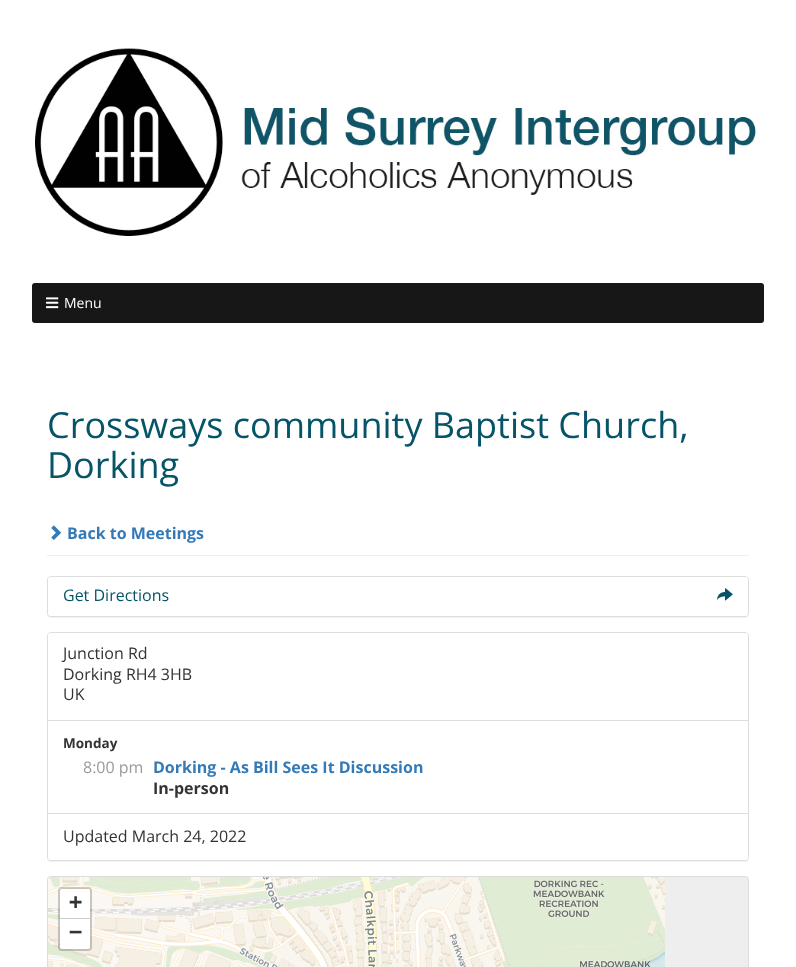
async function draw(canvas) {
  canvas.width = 796;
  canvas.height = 967;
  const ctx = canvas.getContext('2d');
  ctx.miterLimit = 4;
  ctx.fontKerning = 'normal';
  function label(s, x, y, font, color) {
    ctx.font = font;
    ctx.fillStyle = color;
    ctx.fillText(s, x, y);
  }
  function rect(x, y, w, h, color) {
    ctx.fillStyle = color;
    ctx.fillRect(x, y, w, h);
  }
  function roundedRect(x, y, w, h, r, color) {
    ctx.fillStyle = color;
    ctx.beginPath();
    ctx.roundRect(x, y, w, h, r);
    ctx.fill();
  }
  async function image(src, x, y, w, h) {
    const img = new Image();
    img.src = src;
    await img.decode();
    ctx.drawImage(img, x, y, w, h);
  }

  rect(0, 0, 796, 967, '#fff');
  await image('assets/img1.png', 35, 48, 721, 188);
  roundedRect(32, 283, 732, 40, 3, '#171717');
  await image('assets/img2.png', 46, 297, 13, 12);
  label('Menu', 64, 308, '14px Open Sans', '#fff');
  rect(47, 555, 702, 1, '#eee');
  label('Crossways community Baptist Church,', 47, 438, '36px Open Sans', '#065468');
  label('Dorking', 47, 478, '36px Open Sans', '#065468');
  await image('assets/img3.png', 51, 525, 11, 15);
  label('Back to Meetings', 67, 539, 'bold 16px Open Sans', '#337ab7');
  ctx.fillStyle = '#0000000d';
  ctx.filter = 'blur(0.5px)';
  ctx.beginPath();
  ctx.roundRect(47, 577, 702, 41, 4);
  ctx.fill();
  ctx.filter = 'none';
  ctx.beginPath();
  ctx.roundRect(47.5, 576.5, 701, 40, 3.5);
  ctx.strokeStyle = '#ddd';
  ctx.stroke();
  roundedRect(48, 577, 700, 39, 3, '#fff');
  label('Get Directions', 63, 601, '16px Open Sans', '#065468');
  await image('assets/img4.png', 717, 588, 16, 13);
  ctx.fillStyle = '#0000000d';
  ctx.filter = 'blur(0.5px)';
  ctx.beginPath();
  ctx.roundRect(47, 633, 702, 229, 4);
  ctx.fill();
  ctx.filter = 'none';
  ctx.fillStyle = '#fff';
  ctx.beginPath();
  ctx.roundRect(47.5, 632.5, 701, 228, 3.5);
  ctx.fill();
  ctx.stroke();
  ctx.beginPath();
  ctx.roundRect(48, 633, 700, 88, [3, 3, 0, 0]);
  ctx.fill();
  rect(48, 720, 700, 1, '#ddd');
  label('Junction Rd', 63, 659, '16px Open Sans', '#333');
  label('Dorking RH4 3HB', 63, 680, '16px Open Sans', '#333');
  label('UK', 63, 700, '16px Open Sans', '#333');
  label('Monday', 63, 748, 'bold 13.5px Open Sans', '#333');
  label('8:00 pm', 83, 773, '16px Open Sans', '#999');
  label('Dorking - As Bill Sees It Discussion', 153, 773, 'bold 16px Open Sans', '#337ab7');
  label('In-person', 153, 794, 'bold 16px Open Sans', '#333');
  ctx.fillStyle = '#fff';
  ctx.beginPath();
  ctx.roundRect(48, 813, 700, 47, [0, 0, 3, 3]);
  ctx.fill();
  rect(48, 813, 700, 1, '#ddd');
  label('Updated March 24, 2022', 63, 842, '16px Open Sans', '#333');
  ctx.fillStyle = '#eee';
  ctx.beginPath();
  ctx.roundRect(47.5, 876.5, 701, 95, 3.5);
  ctx.fill();
  ctx.stroke();
  await image('assets/img5.png', 48, 877, 105, 90);
  await image('assets/img6.png', 153, 877, 256, 90);
  await image('assets/img7.png', 409, 877, 256, 90);
  ctx.beginPath();
  ctx.roundRect(59, 888, 32, 62, 3);
  ctx.strokeStyle = '#00000033';
  ctx.lineWidth = 2;
  ctx.stroke();
  ctx.fillStyle = '#fff';
  ctx.beginPath();
  ctx.roundRect(60, 889, 30, 30, [2, 2, 0, 0]);
  ctx.fill();
  rect(60, 918, 30, 1, '#ccc');
  label('+', 69, 909, 'bold 22px DejaVu Sans Mono', '#333');
  ctx.fillStyle = '#fff';
  ctx.beginPath();
  ctx.roundRect(60, 919, 30, 30, [0, 0, 2, 2]);
  ctx.fill();
  label('−', 69, 939, 'bold 22px DejaVu Sans Mono', '#333');
}

draw(document.querySelector('canvas'));
